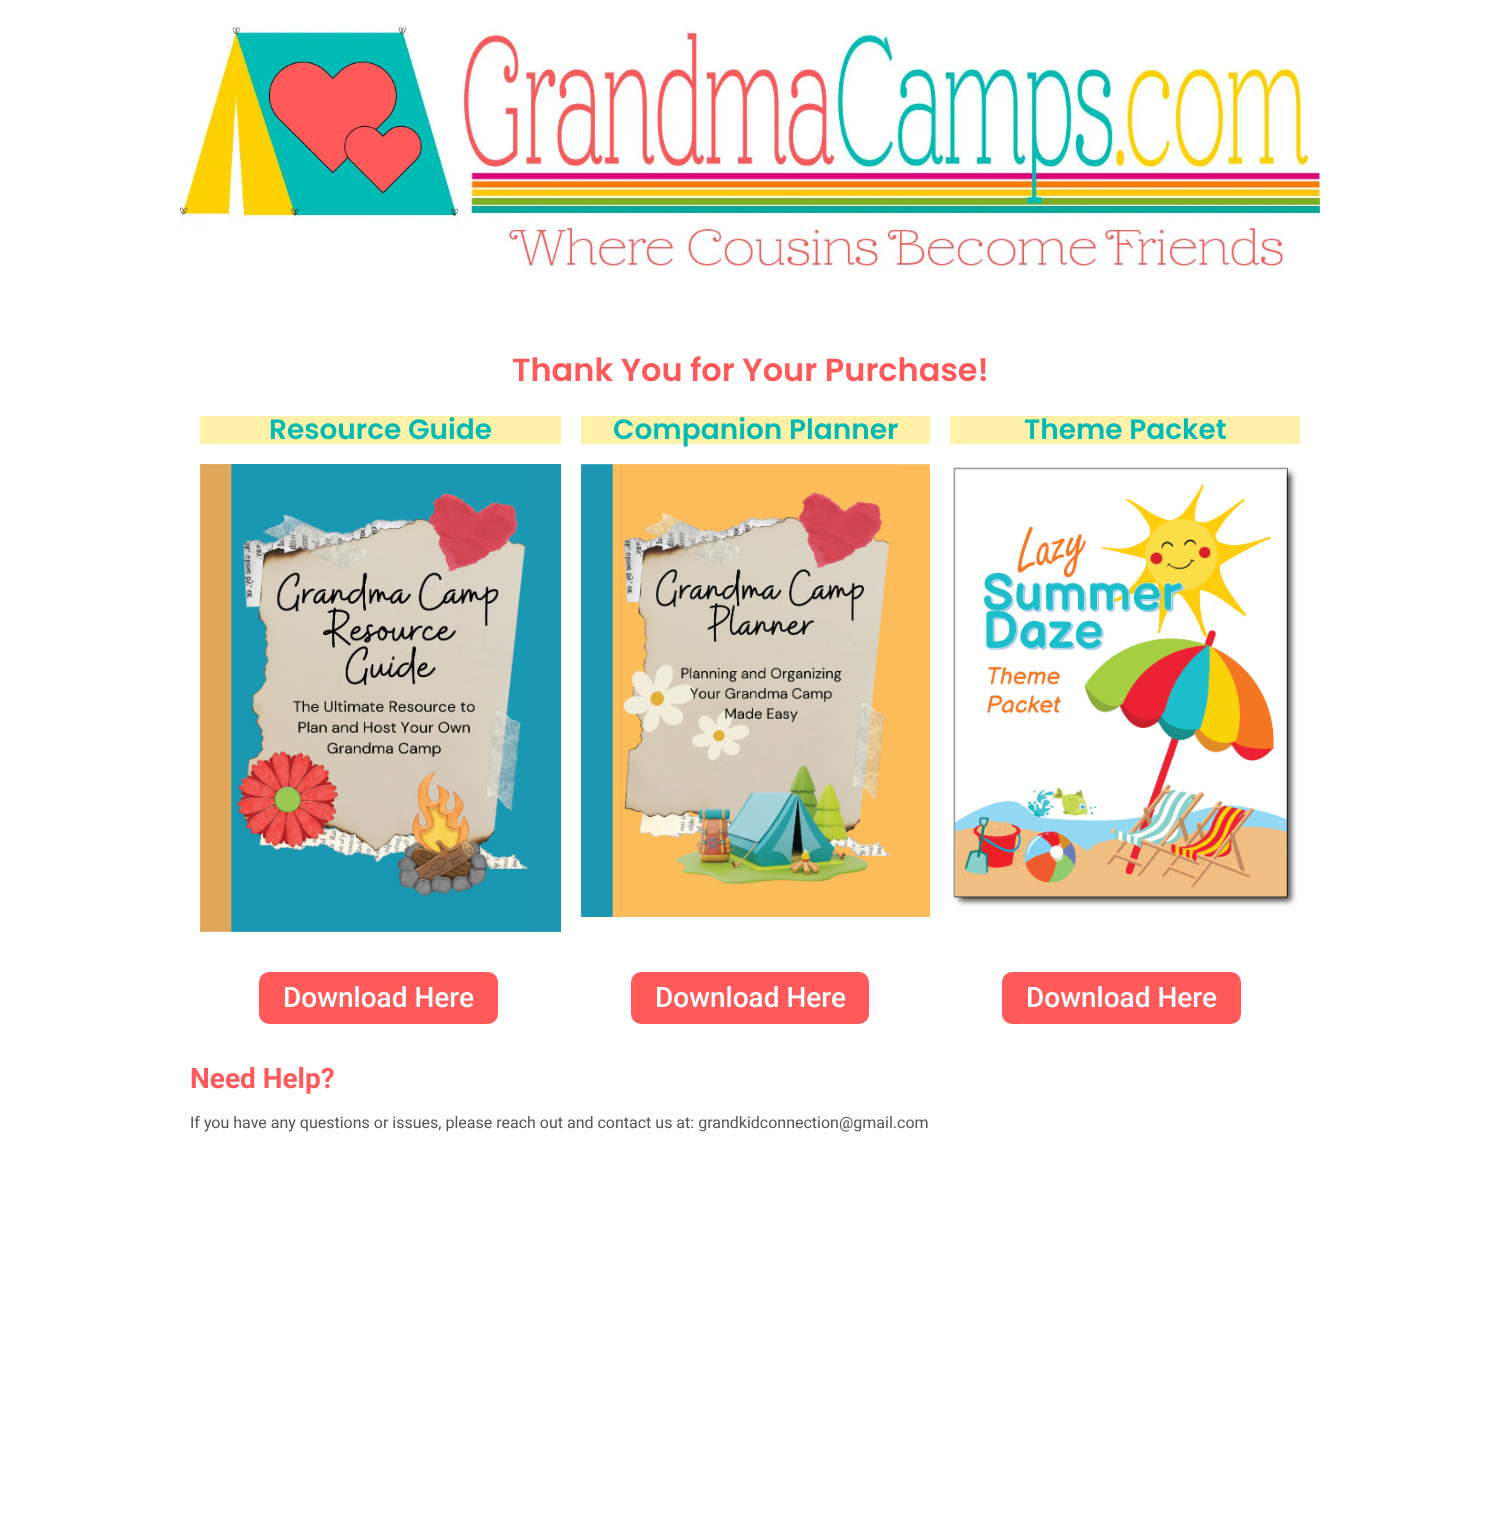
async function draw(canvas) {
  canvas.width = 1500;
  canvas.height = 1516;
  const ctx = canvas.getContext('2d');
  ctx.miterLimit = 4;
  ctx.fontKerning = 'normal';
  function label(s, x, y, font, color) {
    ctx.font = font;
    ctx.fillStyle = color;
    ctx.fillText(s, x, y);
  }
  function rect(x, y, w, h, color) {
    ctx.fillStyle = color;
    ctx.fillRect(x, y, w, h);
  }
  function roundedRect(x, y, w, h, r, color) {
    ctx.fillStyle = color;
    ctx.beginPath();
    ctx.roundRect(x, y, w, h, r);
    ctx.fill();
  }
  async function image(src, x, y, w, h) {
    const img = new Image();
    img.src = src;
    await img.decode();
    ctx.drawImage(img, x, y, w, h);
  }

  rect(0, 0, 1500, 1516, '#fff');
  await image('assets/img1.png', 180, 24, 1140, 246);
  label('Thank You for Your Purchase!', 512, 381, '600 32px Poppins', '#ff595a');
  rect(200, 416, 361, 28, '#fff0aa');
  label('Resource Guide', 269, 439, '600 28px Poppins', '#00bbb4');
  await image('assets/img2.png', 200, 464, 361, 468);
  rect(581, 416, 349, 28, '#fff0aa');
  label('Companion Planner', 613, 439, '600 28px Poppins', '#00bbb4');
  await image('assets/img3.png', 581, 464, 349, 453);
  rect(950, 416, 350, 28, '#fff0aa');
  label('Theme Packet', 1024, 439, '600 28px Poppins', '#00bbb4');
  await image('assets/img4.png', 953, 467, 344, 440);
  roundedRect(259, 972, 239, 52, 10, '#ff595a');
  label('Download Here', 283, 1007, '500 28px Roboto', '#fff');
  roundedRect(631, 972, 238, 52, 10, '#ff595a');
  label('Download Here', 655, 1007, '500 28px Roboto', '#fff');
  roundedRect(1002, 972, 239, 52, 10, '#ff595a');
  label('Download Here', 1026, 1007, '500 28px Roboto', '#fff');
  label('Need Help?', 190, 1088, 'bold 28px Roboto', '#ff595a');
  label('If you have any questions or issues, please reach out and contact us at: grandkidconnection@gmail.com', 190, 1128, '16px Roboto', '#555353');
}

draw(document.querySelector('canvas'));
